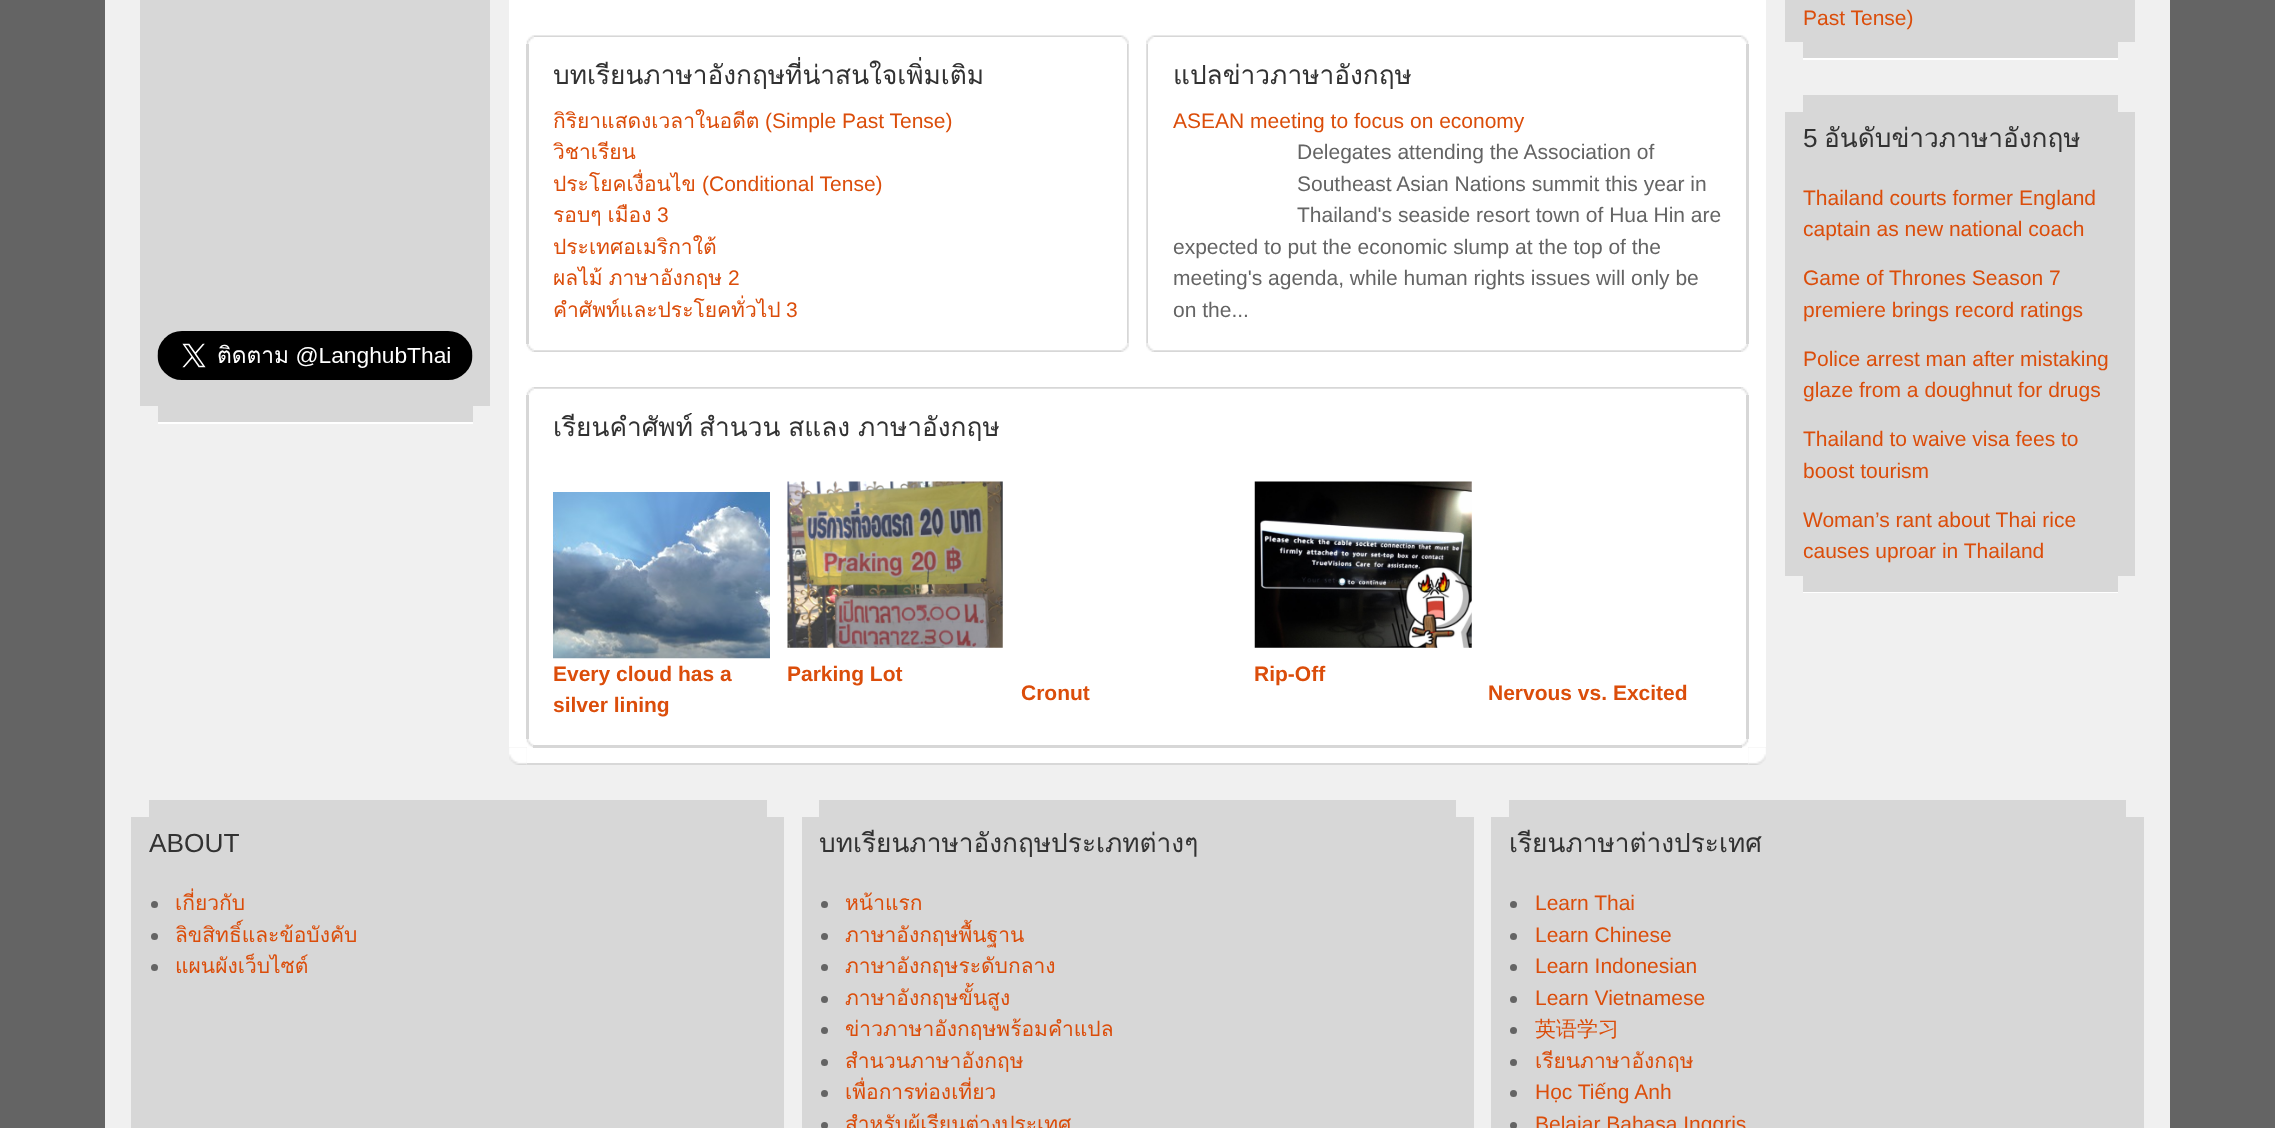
async function draw(canvas) {
  canvas.width = 2275;
  canvas.height = 1128;
  const ctx = canvas.getContext('2d');
  ctx.miterLimit = 4;
  ctx.fontKerning = 'normal';
  function label(s, x, y, font, color) {
    ctx.font = font;
    ctx.fillStyle = color;
    ctx.fillText(s, x, y);
  }
  function rect(x, y, w, h, color) {
    ctx.fillStyle = color;
    ctx.fillRect(x, y, w, h);
  }
  async function image(src, x, y, w, h) {
    const img = new Image();
    img.src = src;
    await img.decode();
    ctx.drawImage(img, x, y, w, h);
  }

  rect(0, 0, 2275, 1128, '#646464');
  rect(105, 0, 2065, 1128, '#f0f0f0');
  rect(140, 0, 350, 406, '#d7d7d7');
  await image('assets/img1.png', 157, 331, 316, 49);
  rect(158, 406, 315, 16, '#d7d7d7');
  rect(158, 422, 315, 2, '#fff');
  rect(509, 0, 1257, 747, '#fff');
  await image('assets/img2.png', 526, 35, 8, 9);
  await image('assets/img3.png', 1121, 35, 8, 9);
  await image('assets/img4.png', 533, 35, 589, 2);
  rect(526, 44, 3, 300, '#d7d7d7');
  await image('assets/img7.png', 1121, 343, 8, 9);
  await image('assets/img5.png', 1127, 44, 2, 300);
  label('บทเรียนภาษาอังกฤษที่น่าสนใจเพิ่มเติม', 553, 84, '26.25px Loma', '#323232');
  label('กิริยาแสดงเวลาในอดีต', 553, 128, '21px Loma', '#db4d0a');
  label('(Simple Past Tense)', 765, 128, '21px Liberation Sans', '#db4d0a');
  label('วิชาเรียน', 553, 159, '21px Loma', '#db4d0a');
  label('ประโยคเงื่อนไข', 553, 191, '21px Loma', '#db4d0a');
  label('(Conditional Tense)', 702, 191, '21px Liberation Sans', '#db4d0a');
  ctx.wordSpacing = '-1px';
  label('รอบๆ เมือง', 553, 222, '21px Loma', '#db4d0a');
  ctx.wordSpacing = '0px';
  label('3', 657, 222, '21px Liberation Sans', '#db4d0a');
  label('ประเทศอเมริกาใต้', 553, 254, '21px Loma', '#db4d0a');
  ctx.wordSpacing = '-1px';
  label('ผลไม้ ภาษาอังกฤษ', 553, 285, '21px Loma', '#db4d0a');
  ctx.wordSpacing = '0px';
  label('2', 728, 285, '21px Liberation Sans', '#db4d0a');
  label('คำศัพท์และประโยคทั่วไป', 553, 317, '21px Loma', '#db4d0a');
  label('3', 786, 317, '21px Liberation Sans', '#db4d0a');
  await image('assets/img6.png', 526, 344, 8, 8);
  await image('assets/img8.png', 533, 350, 589, 2);
  await image('assets/img9.png', 1146, 35, 8, 9);
  await image('assets/img10.png', 1741, 35, 8, 9);
  await image('assets/img11.png', 1153, 35, 589, 2);
  await image('assets/img12.png', 1146, 44, 2, 300);
  rect(1746, 44, 3, 300, '#d7d7d7');
  label('แปลข่าวภาษาอังกฤษ', 1173, 84, '26.25px Loma', '#323232');
  label('ASEAN meeting to focus on economy', 1173, 128, '21px Liberation Sans', '#db4d0a');
  label('Delegates attending the Association of', 1297, 159, '21px Liberation Sans', '#646464');
  label('Southeast Asian Nations summit this year in', 1297, 191, '21px Liberation Sans', '#646464');
  label('Thailand\'s seaside resort town of Hua Hin are', 1297, 222, '21px Liberation Sans', '#646464');
  label('expected to put the economic slump at the top of the', 1173, 254, '21px Liberation Sans', '#646464');
  label('meeting\'s agenda, while human rights issues will only be', 1173, 285, '21px Liberation Sans', '#646464');
  label('on the...', 1173, 317, '21px Liberation Sans', '#646464');
  await image('assets/img13.png', 1146, 343, 8, 9);
  await image('assets/img14.png', 1741, 344, 8, 8);
  await image('assets/img15.png', 1153, 350, 589, 2);
  await image('assets/img16.png', 526, 387, 8, 8);
  await image('assets/img17.png', 1741, 387, 8, 8);
  await image('assets/img18.png', 533, 387, 1209, 2);
  rect(526, 395, 3, 344, '#d7d7d7');
  rect(1746, 395, 3, 344, '#d7d7d7');
  label('เรียนคำศัพท์', 553, 436, '26.25px Loma', '#323232');
  ctx.wordSpacing = '-1px';
  label('สำนวน สแลง ภาษาอังกฤษ', 699, 436, '26.25px Loma', '#323232');
  await image('assets/img19.png', 553, 492, 217, 167);
  ctx.wordSpacing = '0px';
  label('Every cloud has a', 553, 681, 'bold 21px Liberation Sans', '#db4d0a');
  label('silver lining', 553, 712, 'bold 21px Liberation Sans', '#db4d0a');
  await image('assets/img20.png', 787, 481, 216, 167);
  label('Parking Lot', 787, 681, 'bold 21px Liberation Sans', '#db4d0a');
  await image('assets/img21.png', 1254, 481, 218, 167);
  label('Rip-Off', 1254, 681, 'bold 21px Liberation Sans', '#db4d0a');
  label('Cronut', 1021, 700, 'bold 21px Liberation Sans', '#db4d0a');
  label('Nervous vs. Excited', 1488, 700, 'bold 21px Liberation Sans', '#db4d0a');
  await image('assets/img24.png', 509, 747, 18, 18);
  rect(527, 747, 1221, 16, '#fff');
  await image('assets/img22.png', 526, 739, 8, 9);
  await image('assets/img25.png', 1748, 747, 18, 18);
  await image('assets/img23.png', 1741, 739, 8, 9);
  rect(533, 745, 1209, 3, '#d7d7d7');
  rect(527, 763, 1221, 2, '#d8d8d8');
  rect(1785, 0, 350, 42, '#d7d7d7');
  label('Past Tense)', 1803, 25, '21px Liberation Sans', '#db4d0a');
  rect(1803, 42, 315, 16, '#d7d7d7');
  rect(1803, 58, 315, 2, '#fff');
  rect(1803, 95, 315, 17, '#d7d7d7');
  rect(1785, 112, 350, 464, '#d7d7d7');
  label('5', 1803, 147, '26.25px Liberation Sans', '#323232');
  label('อันดับข่าวภาษาอังกฤษ', 1824, 147, '26.25px Loma', '#323232');
  label('Thailand courts former England', 1803, 205, '21px Liberation Sans', '#db4d0a');
  label('captain as new national coach', 1803, 236, '21px Liberation Sans', '#db4d0a');
  label('Game of Thrones Season 7', 1803, 285, '21px Liberation Sans', '#db4d0a');
  label('premiere brings record ratings', 1803, 317, '21px Liberation Sans', '#db4d0a');
  label('Police arrest man after mistaking', 1803, 366, '21px Liberation Sans', '#db4d0a');
  label('glaze from a doughnut for drugs', 1803, 397, '21px Liberation Sans', '#db4d0a');
  label('Thailand to waive visa fees to', 1803, 446, '21px Liberation Sans', '#db4d0a');
  label('boost tourism', 1803, 478, '21px Liberation Sans', '#db4d0a');
  label('Woman’s rant about Thai rice', 1803, 527, '21px Liberation Sans', '#db4d0a');
  label('causes uproar in Thailand', 1803, 558, '21px Liberation Sans', '#db4d0a');
  rect(1803, 576, 315, 16, '#d7d7d7');
  rect(1803, 592, 315, 1, '#fff');
  rect(149, 800, 618, 17, '#d7d7d7');
  rect(131, 817, 653, 311, '#d7d7d7');
  label('ABOUT', 149, 852, '26.25px Liberation Sans', '#323232');
  ctx.fillStyle = '#646464';
  ctx.beginPath();
  ctx.arc(154.5, 904.5, 3.5, 0, 2 * Math.PI);
  ctx.fill();
  label('เกี่ยวกับ', 175, 910, '21px Loma', '#db4d0a');
  ctx.fillStyle = '#646464';
  ctx.beginPath();
  ctx.arc(154.5, 936.5, 3.5, 0, 2 * Math.PI);
  ctx.fill();
  label('ลิขสิทธิ์และข้อบังคับ', 175, 942, '21px Loma', '#db4d0a');
  ctx.fillStyle = '#646464';
  ctx.beginPath();
  ctx.arc(154.5, 967.5, 3.5, 0, 2 * Math.PI);
  ctx.fill();
  label('แผนผังเว็บไซต์', 175, 973, '21px Loma', '#db4d0a');
  rect(819, 800, 637, 17, '#d7d7d7');
  rect(802, 817, 672, 311, '#d7d7d7');
  label('บทเรียนภาษาอังกฤษประเภทต่างๆ', 819, 852, '26.25px Loma', '#323232');
  ctx.fillStyle = '#646464';
  ctx.beginPath();
  ctx.arc(824.5, 904.5, 3.5, 0, 2 * Math.PI);
  ctx.fill();
  label('หน้าแรก', 845, 910, '21px Loma', '#db4d0a');
  ctx.fillStyle = '#646464';
  ctx.beginPath();
  ctx.arc(824.5, 936.5, 3.5, 0, 2 * Math.PI);
  ctx.fill();
  label('ภาษาอังกฤษพื้นฐาน', 845, 942, '21px Loma', '#db4d0a');
  ctx.fillStyle = '#646464';
  ctx.beginPath();
  ctx.arc(824.5, 967.5, 3.5, 0, 2 * Math.PI);
  ctx.fill();
  label('ภาษาอังกฤษระดับกลาง', 845, 973, '21px Loma', '#db4d0a');
  ctx.fillStyle = '#646464';
  ctx.beginPath();
  ctx.arc(824.5, 999.5, 3.5, 0, 2 * Math.PI);
  ctx.fill();
  label('ภาษาอังกฤษขั้นสูง', 845, 1005, '21px Loma', '#db4d0a');
  ctx.fillStyle = '#646464';
  ctx.beginPath();
  ctx.arc(824.5, 1030.5, 3.5, 0, 2 * Math.PI);
  ctx.fill();
  label('ข่าวภาษาอังกฤษพร้อมคําแปล', 845, 1036, '21px Loma', '#db4d0a');
  ctx.fillStyle = '#646464';
  ctx.beginPath();
  ctx.arc(824.5, 1062.5, 3.5, 0, 2 * Math.PI);
  ctx.fill();
  label('สำนวนภาษาอังกฤษ', 845, 1068, '21px Loma', '#db4d0a');
  ctx.fillStyle = '#646464';
  ctx.beginPath();
  ctx.arc(824.5, 1093.5, 3.5, 0, 2 * Math.PI);
  ctx.fill();
  label('เพื่อการท่องเที่ยว', 845, 1099, '21px Loma', '#db4d0a');
  ctx.fillStyle = '#646464';
  ctx.beginPath();
  ctx.arc(824.5, 1125.5, 3.5, 0, 2 * Math.PI);
  ctx.fill();
  label('สำหรับผู้เรียนต่างประเทศ', 845, 1131, '21px Loma', '#db4d0a');
  rect(1509, 800, 617, 17, '#d7d7d7');
  rect(1491, 817, 653, 311, '#d7d7d7');
  label('เรียนภาษาต่างประเทศ', 1509, 852, '26.25px Loma', '#323232');
  ctx.fillStyle = '#646464';
  ctx.beginPath();
  ctx.arc(1513.5, 904.5, 3.5, 0, 2 * Math.PI);
  ctx.fill();
  label('Learn Thai', 1535, 910, '21px Liberation Sans', '#db4d0a');
  ctx.fillStyle = '#646464';
  ctx.beginPath();
  ctx.arc(1513.5, 936.5, 3.5, 0, 2 * Math.PI);
  ctx.fill();
  label('Learn Chinese', 1535, 942, '21px Liberation Sans', '#db4d0a');
  ctx.fillStyle = '#646464';
  ctx.beginPath();
  ctx.arc(1513.5, 967.5, 3.5, 0, 2 * Math.PI);
  ctx.fill();
  label('Learn Indonesian', 1535, 973, '21px Liberation Sans', '#db4d0a');
  ctx.fillStyle = '#646464';
  ctx.beginPath();
  ctx.arc(1513.5, 999.5, 3.5, 0, 2 * Math.PI);
  ctx.fill();
  label('Learn Vietnamese', 1535, 1005, '21px Liberation Sans', '#db4d0a');
  ctx.fillStyle = '#646464';
  ctx.beginPath();
  ctx.arc(1513.5, 1030.5, 3.5, 0, 2 * Math.PI);
  ctx.fill();
  label('英语学习', 1535, 1036, '500 21px WenQuanYi Zen Hei', '#db4d0a');
  ctx.fillStyle = '#646464';
  ctx.beginPath();
  ctx.arc(1513.5, 1062.5, 3.5, 0, 2 * Math.PI);
  ctx.fill();
  label('เรียนภาษาอังกฤษ', 1535, 1068, '21px Loma', '#db4d0a');
  ctx.fillStyle = '#646464';
  ctx.beginPath();
  ctx.arc(1513.5, 1093.5, 3.5, 0, 2 * Math.PI);
  ctx.fill();
  label('Học Tiếng Anh', 1535, 1099, '21px Liberation Sans', '#db4d0a');
  ctx.fillStyle = '#646464';
  ctx.beginPath();
  ctx.arc(1513.5, 1125.5, 3.5, 0, 2 * Math.PI);
  ctx.fill();
  label('Belajar Bahasa Inggris', 1535, 1131, '21px Liberation Sans', '#db4d0a');
}

draw(document.querySelector('canvas'));
